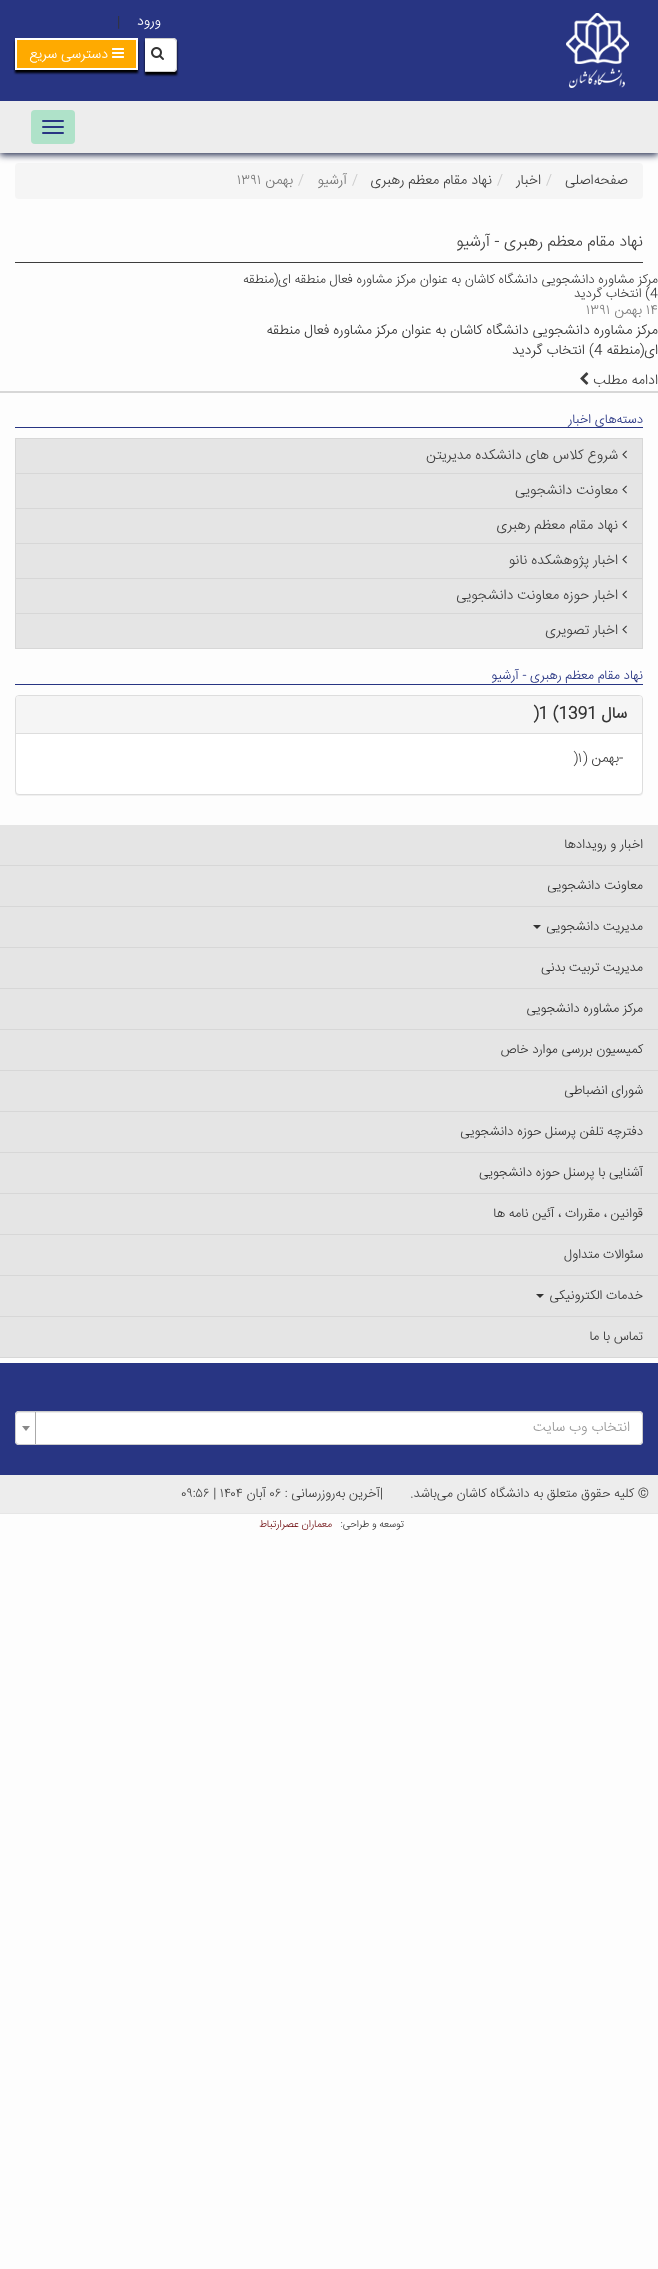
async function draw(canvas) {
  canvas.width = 658;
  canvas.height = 2269;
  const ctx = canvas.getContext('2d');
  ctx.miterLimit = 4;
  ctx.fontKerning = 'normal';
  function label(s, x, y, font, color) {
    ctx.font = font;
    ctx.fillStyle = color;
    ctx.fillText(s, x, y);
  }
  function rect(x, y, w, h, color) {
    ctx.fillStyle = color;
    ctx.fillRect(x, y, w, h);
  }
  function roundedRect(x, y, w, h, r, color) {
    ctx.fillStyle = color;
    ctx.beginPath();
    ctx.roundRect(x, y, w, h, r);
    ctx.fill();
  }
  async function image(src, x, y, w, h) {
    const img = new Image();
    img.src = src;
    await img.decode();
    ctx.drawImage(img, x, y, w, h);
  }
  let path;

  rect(0, 0, 658, 2269, '#fdfdfd');
  roundedRect(15, 163, 628, 36, 4, '#f5f5f5');
  ctx.fillStyle = '#1e274a';
  ctx.filter = 'blur(3.5px)';
  ctx.beginPath();
  ctx.rect(0, 2, 658, 153);
  ctx.fill();
  ctx.filter = 'none';
  rect(0, 0, 658, 101, '#283583');
  await image('assets/img1.png', 566, 13, 63, 75);
  ctx.direction = 'rtl';
  label('ورود', 161, 25, '300 14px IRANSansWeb', '#fff');
  ctx.direction = 'ltr';
  label('|', 117, 26, '300 14px IRANSansWeb', '#333');
  ctx.fillStyle = '#000';
  ctx.filter = 'blur(1px)';
  ctx.beginPath();
  ctx.rect(145, 41, 32, 34);
  ctx.fill();
  ctx.filter = 'none';
  ctx.fillStyle = '#fff';
  ctx.beginPath();
  ctx.roundRect(145, 38, 32, 34, [0, 4, 4, 0]);
  ctx.fill();
  ctx.fillStyle = '#000';
  ctx.filter = 'blur(1px)';
  ctx.beginPath();
  ctx.rect(15, 41, 123, 32);
  ctx.fill();
  ctx.filter = 'none';
  ctx.save();
  ctx.beginPath();
  ctx.rect(145, 38, 32, 34);
  ctx.clip();
  ctx.beginPath();
  ctx.roundRect(138.5, 38.5, 38, 33, [0, 3.5, 3.5, 0]);
  ctx.strokeStyle = '#ccc';
  ctx.stroke();
  ctx.restore();
  await image('assets/img2.png', 151, 47, 13, 13);
  ctx.fillStyle = '#fa0';
  ctx.beginPath();
  ctx.rect(16, 39, 121, 30);
  ctx.fill();
  ctx.strokeStyle = '#fff';
  ctx.lineWidth = 2;
  ctx.stroke();
  await image('assets/img3.png', 112, 48, 12, 10);
  ctx.direction = 'rtl';
  label('دسترسی سریع', 108, 58, '300 14px IRANSansWeb', '#fff');
  rect(0, 101, 658, 52, '#ededed');
  roundedRect(31, 110, 44, 34, 4, '#afe2c9');
  roundedRect(42, 120, 22, 2, 1, '#283583');
  roundedRect(42, 126, 22, 2, 1, '#283583');
  roundedRect(42, 132, 22, 2, 1, '#283583');
  label('صفحه‌اصلی', 628, 184, '300 14px IRANSansWeb', '#3d3d3d');
  ctx.direction = 'ltr';
  label('/', 546, 184, '300 14px IRANSansWeb', '#ccc');
  ctx.direction = 'rtl';
  label('اخبار', 541, 184, '300 14px IRANSansWeb', '#3d3d3d');
  ctx.direction = 'ltr';
  label('/', 497, 184, '300 14px IRANSansWeb', '#ccc');
  ctx.direction = 'rtl';
  label('نهاد مقام معظم رهبری', 492, 184, '300 14px IRANSansWeb', '#3d3d3d');
  ctx.direction = 'ltr';
  label('/', 352, 184, '300 14px IRANSansWeb', '#ccc');
  ctx.direction = 'rtl';
  label('آرشیو', 347, 184, '300 14px IRANSansWeb', '#777');
  ctx.direction = 'ltr';
  label('/', 298, 184, '300 14px IRANSansWeb', '#ccc');
  ctx.direction = 'rtl';
  label('بهمن', 293, 184, '300 14px IRANSansWeb', '#777');
  ctx.direction = 'ltr';
  label('۱۳۹۱', 237, 184, '300 14px IRANSansWeb', '#777');
  rect(15, 262, 628, 1, '#3d3d3d');
  ctx.direction = 'rtl';
  label('نهاد مقام معظم رهبری - آرشیو', 643, 246, '300 16px IRANSansWeb', '#3d3d3d');
  rect(0, 391, 658, 2, '#d7d7d7');
  label('مرکز مشاوره دانشجویی دانشگاه کاشان به عنوان مرکز مشاوره فعال منطقه ای(منطقه', 658, 283, '300 13px IRANSansWeb', '#3d3d3d');
  ctx.direction = 'ltr';
  label('4', 650, 297, '300 13px IRANSansWeb', '#3d3d3d');
  ctx.direction = 'rtl';
  label(') انتخاب گردید', 650, 297, '300 13px IRANSansWeb', '#3d3d3d');
  ctx.direction = 'ltr';
  label('۱۴', 646, 314, '300 14px IRANSansWeb', '#7e7e7e');
  ctx.direction = 'rtl';
  label('بهمن', 642, 314, '300 14px IRANSansWeb', '#7e7e7e');
  ctx.direction = 'ltr';
  label('۱۳۹۱', 586, 314, '300 14px IRANSansWeb', '#7e7e7e');
  ctx.direction = 'rtl';
  label('مرکز مشاوره دانشجویی دانشگاه کاشان به عنوان مرکز مشاوره فعال منطقه', 658, 334, '300 14px IRANSansWeb', '#333');
  label('ای(منطقه', 658, 354, '300 14px IRANSansWeb', '#333');
  ctx.direction = 'ltr';
  label('4', 594, 354, '300 14px IRANSansWeb', '#333');
  ctx.direction = 'rtl';
  label(') انتخاب گردید', 594, 354, '300 14px IRANSansWeb', '#333');
  label('ادامه مطلب', 658, 384, '300 14px IRANSansWeb', '#3d3d3d');
  await image('assets/img4.png', 580, 372, 9, 13);
  rect(15, 427, 628, 1, '#283583');
  label('دسته‌های اخبار', 643, 423, '300 13px IRANSansWeb', '#283583');
  ctx.strokeStyle = '#d7d7d7';
  ctx.lineWidth = 1;
  ctx.strokeRect(15.5, 438.5, 627, 210);
  rect(16, 439, 626, 34, '#e5e5e5');
  rect(16, 473, 626, 1, '#d7d7d7');
  await image('assets/img5.png', 622, 450, 5, 9);
  label('شروع کلاس های دانشکده مدیریتن', 618, 459, '300 14px IRANSansWeb', '#3d3d3d');
  rect(16, 474, 626, 34, '#e5e5e5');
  rect(16, 508, 626, 1, '#d7d7d7');
  await image('assets/img5.png', 622, 485, 5, 9);
  label('معاونت دانشجویی', 618, 494, '300 14px IRANSansWeb', '#3d3d3d');
  rect(16, 509, 626, 34, '#e5e5e5');
  rect(16, 543, 626, 1, '#d7d7d7');
  await image('assets/img5.png', 622, 520, 5, 9);
  label('نهاد مقام معظم رهبری', 618, 529, '300 14px IRANSansWeb', '#3d3d3d');
  rect(16, 544, 626, 34, '#e5e5e5');
  rect(16, 578, 626, 1, '#d7d7d7');
  await image('assets/img5.png', 622, 555, 5, 9);
  label('اخبار پژوهشکده نانو', 618, 564, '300 14px IRANSansWeb', '#3d3d3d');
  rect(16, 579, 626, 34, '#e5e5e5');
  rect(16, 613, 626, 1, '#d7d7d7');
  await image('assets/img5.png', 622, 590, 5, 9);
  label('اخبار حوزه معاونت دانشجویی', 618, 599, '300 14px IRANSansWeb', '#3d3d3d');
  rect(16, 614, 626, 34, '#e5e5e5');
  await image('assets/img5.png', 622, 625, 5, 9);
  label('اخبار تصویری', 618, 634, '300 14px IRANSansWeb', '#3d3d3d');
  rect(15, 684, 628, 1, '#283583');
  label('نهاد مقام معظم رهبری - آرشیو', 643, 679, '300 13px IRANSansWeb', '#283583');
  ctx.fillStyle = '#0000000d';
  ctx.filter = 'blur(0.5px)';
  ctx.beginPath();
  ctx.roundRect(15, 696, 628, 100, 4);
  ctx.fill();
  ctx.filter = 'none';
  ctx.fillStyle = '#fff';
  ctx.beginPath();
  ctx.roundRect(15.5, 695.5, 627, 99, 3.5);
  ctx.fill();
  ctx.strokeStyle = '#ddd';
  ctx.stroke();
  ctx.fillStyle = '#f5f5f5';
  ctx.beginPath();
  ctx.roundRect(16, 696, 626, 37, [3, 3, 0, 0]);
  ctx.fill();
  label('سال', 627, 718, 'bold 16px IRANSansWeb', '#333');
  ctx.direction = 'ltr';
  label(')1 (1391', 533, 718, 'bold 16px IRANSansWeb', '#333');
  rect(16, 733, 626, 1, '#ddd');
  label('-', 619, 762, '300 14px IRANSansWeb', '#333');
  ctx.direction = 'rtl';
  label('بهمن (', 619, 762, '300 14px IRANSansWeb', '#3d3d3d');
  ctx.direction = 'ltr';
  label(')۱', 573, 762, '300 14px IRANSansWeb', '#3d3d3d');
  rect(0, 825, 658, 40, '#e5e5e5');
  rect(0, 865, 658, 1, '#d7d7d7');
  ctx.direction = 'rtl';
  label('اخبار و رویدادها', 643, 848, '300 13px IRANSansWeb', '#333');
  rect(0, 866, 658, 40, '#e5e5e5');
  rect(0, 906, 658, 1, '#d7d7d7');
  label('معاونت دانشجویی', 643, 889, '300 13px IRANSansWeb', '#333');
  rect(0, 907, 658, 40, '#e5e5e5');
  rect(0, 947, 658, 1, '#d7d7d7');
  label('مدیریت دانشجویی', 643, 930, '300 13px IRANSansWeb', '#333');
  path = new Path2D('M533 925H541L537 929Z');
  ctx.fill(path);
  rect(0, 948, 658, 40, '#e5e5e5');
  rect(0, 988, 658, 1, '#d7d7d7');
  label('مدیریت تربیت بدنی', 643, 971, '300 13px IRANSansWeb', '#333');
  rect(0, 989, 658, 40, '#e5e5e5');
  rect(0, 1029, 658, 1, '#d7d7d7');
  label('مرکز مشاوره دانشجویی', 643, 1012, '300 13px IRANSansWeb', '#333');
  rect(0, 1030, 658, 40, '#e5e5e5');
  rect(0, 1070, 658, 1, '#d7d7d7');
  label('کمیسیون بررسی موارد خاص', 643, 1053, '300 13px IRANSansWeb', '#333');
  rect(0, 1071, 658, 40, '#e5e5e5');
  rect(0, 1111, 658, 1, '#d7d7d7');
  label('شورای انضباطی', 643, 1094, '300 13px IRANSansWeb', '#333');
  rect(0, 1112, 658, 40, '#e5e5e5');
  rect(0, 1152, 658, 1, '#d7d7d7');
  label('دفترچه تلفن پرسنل حوزه دانشجویی', 643, 1135, '300 13px IRANSansWeb', '#333');
  rect(0, 1153, 658, 40, '#e5e5e5');
  rect(0, 1193, 658, 1, '#d7d7d7');
  label('آشنایی با پرسنل حوزه دانشجویی', 643, 1176, '300 13px IRANSansWeb', '#333');
  rect(0, 1194, 658, 40, '#e5e5e5');
  rect(0, 1234, 658, 1, '#d7d7d7');
  label('قوانین ، مقررات ، آئین نامه ها', 643, 1217, '300 13px IRANSansWeb', '#333');
  rect(0, 1235, 658, 40, '#e5e5e5');
  rect(0, 1275, 658, 1, '#d7d7d7');
  label('سئوالات متداول', 643, 1258, '300 13px IRANSansWeb', '#333');
  rect(0, 1276, 658, 40, '#e5e5e5');
  rect(0, 1316, 658, 1, '#d7d7d7');
  label('خدمات الکترونیکی', 643, 1299, '300 13px IRANSansWeb', '#333');
  path = new Path2D('M536 1294H544L540 1298Z');
  ctx.fill(path);
  rect(0, 1317, 658, 40, '#e5e5e5');
  rect(0, 1357, 658, 1, '#d7d7d7');
  label('تماس با ما', 643, 1340, '300 13px IRANSansWeb', '#333');
  rect(0, 1363, 658, 112, '#283583');
  roundedRect(15, 1411, 628, 34, 4, '#fff');
  ctx.fillStyle = '#ececec';
  path = new Path2D('M19 1413H639C641 1413 642 1414 642 1416V1415C642 1413 641 1412 639 1412H19C17 1412 16 1413 16 1415V1416C16 1414 17 1413 19 1413Z');
  ctx.fill(path);
  ctx.beginPath();
  ctx.roundRect(15.5, 1411.5, 627, 33, 3.5);
  ctx.strokeStyle = '#ccc';
  ctx.stroke();
  label('انتخاب وب سایت', 630, 1431, '300 14px IRANSansWeb', '#999');
  rect(35, 1412, 1, 32, '#aaa');
  ctx.fillStyle = '#888';
  path = new Path2D('M22 1426H30L26 1431Z');
  ctx.fill(path);
  rect(0, 1475, 658, 38, '#ededed');
  label('© کلیه حقوق متعلق به دانشگاه کاشان می‌باشد.', 649, 1497, '300 13px IRANSansWeb', '#3d3d3d');
  ctx.direction = 'ltr';
  label('|', 380, 1497, '300 13px IRANSansWeb', '#3d3d3d');
  ctx.direction = 'rtl';
  label('آخرین به‌روزرسانی :', 380, 1497, '300 13px IRANSansWeb', '#3d3d3d');
  ctx.direction = 'ltr';
  label('۰۶', 270, 1497, '300 13px IRANSansWeb', '#3d3d3d');
  ctx.direction = 'rtl';
  label('آبان', 266, 1497, '300 13px IRANSansWeb', '#3d3d3d');
  ctx.direction = 'ltr';
  label('۰۹:۵۶ | ۱۴۰۴', 181, 1497, '300 13px IRANSansWeb', '#3d3d3d');
  rect(0, 1513, 658, 1, '#e6e6e6');
  ctx.direction = 'rtl';
  label('توسعه و طراحی:', 404, 1527, '300 10px IRANSansWeb', '#333');
  label('معماران عصر‌ارتباط', 332, 1527, '300 10.25px IRANSansWeb', '#6c090c');
}

draw(document.querySelector('canvas'));
